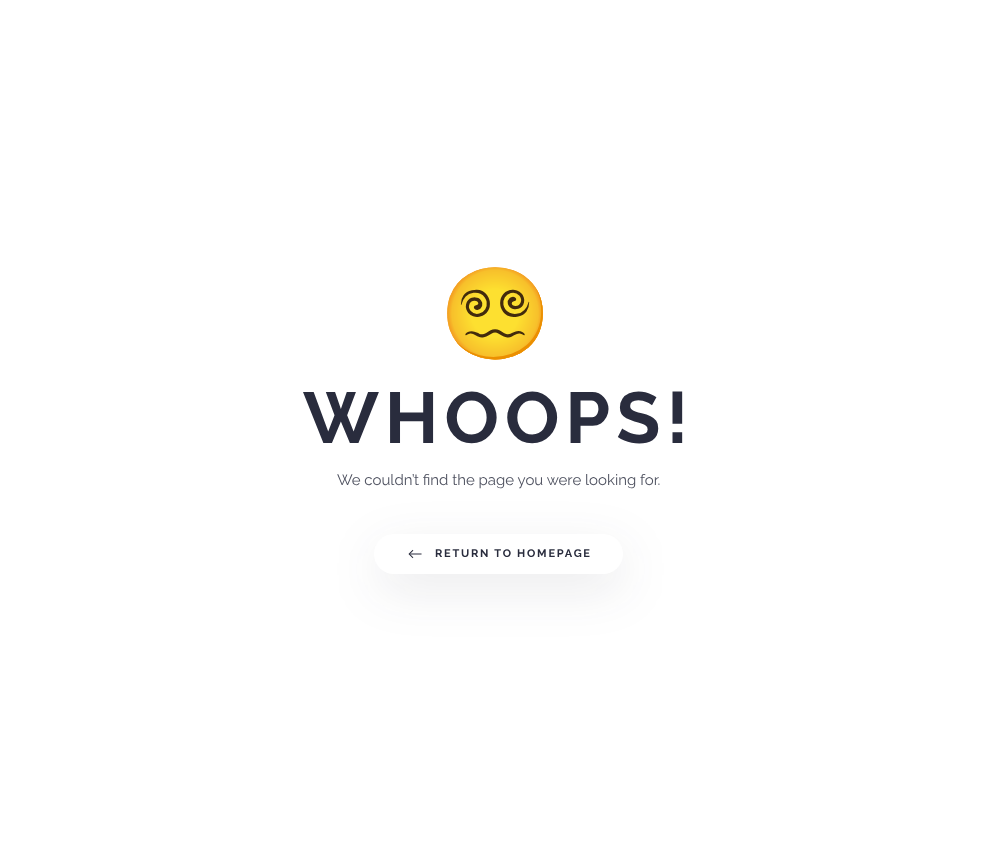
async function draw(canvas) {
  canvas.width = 997;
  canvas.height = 842;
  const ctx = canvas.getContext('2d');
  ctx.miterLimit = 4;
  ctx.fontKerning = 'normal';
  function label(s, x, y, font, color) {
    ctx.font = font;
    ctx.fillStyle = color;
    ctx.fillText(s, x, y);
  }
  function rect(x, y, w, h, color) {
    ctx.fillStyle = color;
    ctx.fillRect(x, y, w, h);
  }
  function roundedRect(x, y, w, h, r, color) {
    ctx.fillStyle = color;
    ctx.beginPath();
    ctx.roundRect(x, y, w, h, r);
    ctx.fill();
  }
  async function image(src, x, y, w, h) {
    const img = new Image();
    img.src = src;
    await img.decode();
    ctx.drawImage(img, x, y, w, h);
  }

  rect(0, 0, 997, 842, '#fff');
  ctx.letterSpacing = '6px';
  label('😵‍💫', 439, 345, 'bold 90px Noto Color Emoji', '#292c3d');
  label('WHOOPS!', 303, 443, '100 72px Raleway', '#292c3d');
  ctx.fillStyle = '#292c3d1a';
  ctx.filter = 'blur(25px)';
  ctx.beginPath();
  ctx.roundRect(376, 549, 249, 40, 20);
  ctx.fill();
  ctx.filter = 'none';
  ctx.letterSpacing = '0px';
  label('We couldn’t find the page you were looking for.', 337, 485, '100 15px "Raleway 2"', '#4f5260');
  roundedRect(374, 534, 249, 40, 20, '#fff');
  await image('assets/img1.png', 408, 549, 14, 10);
  ctx.letterSpacing = '1.75px';
  label('RETURN TO HOMEPAGE', 435, 557, '100 11px Raleway', '#292c3d');
}

draw(document.querySelector('canvas'));
